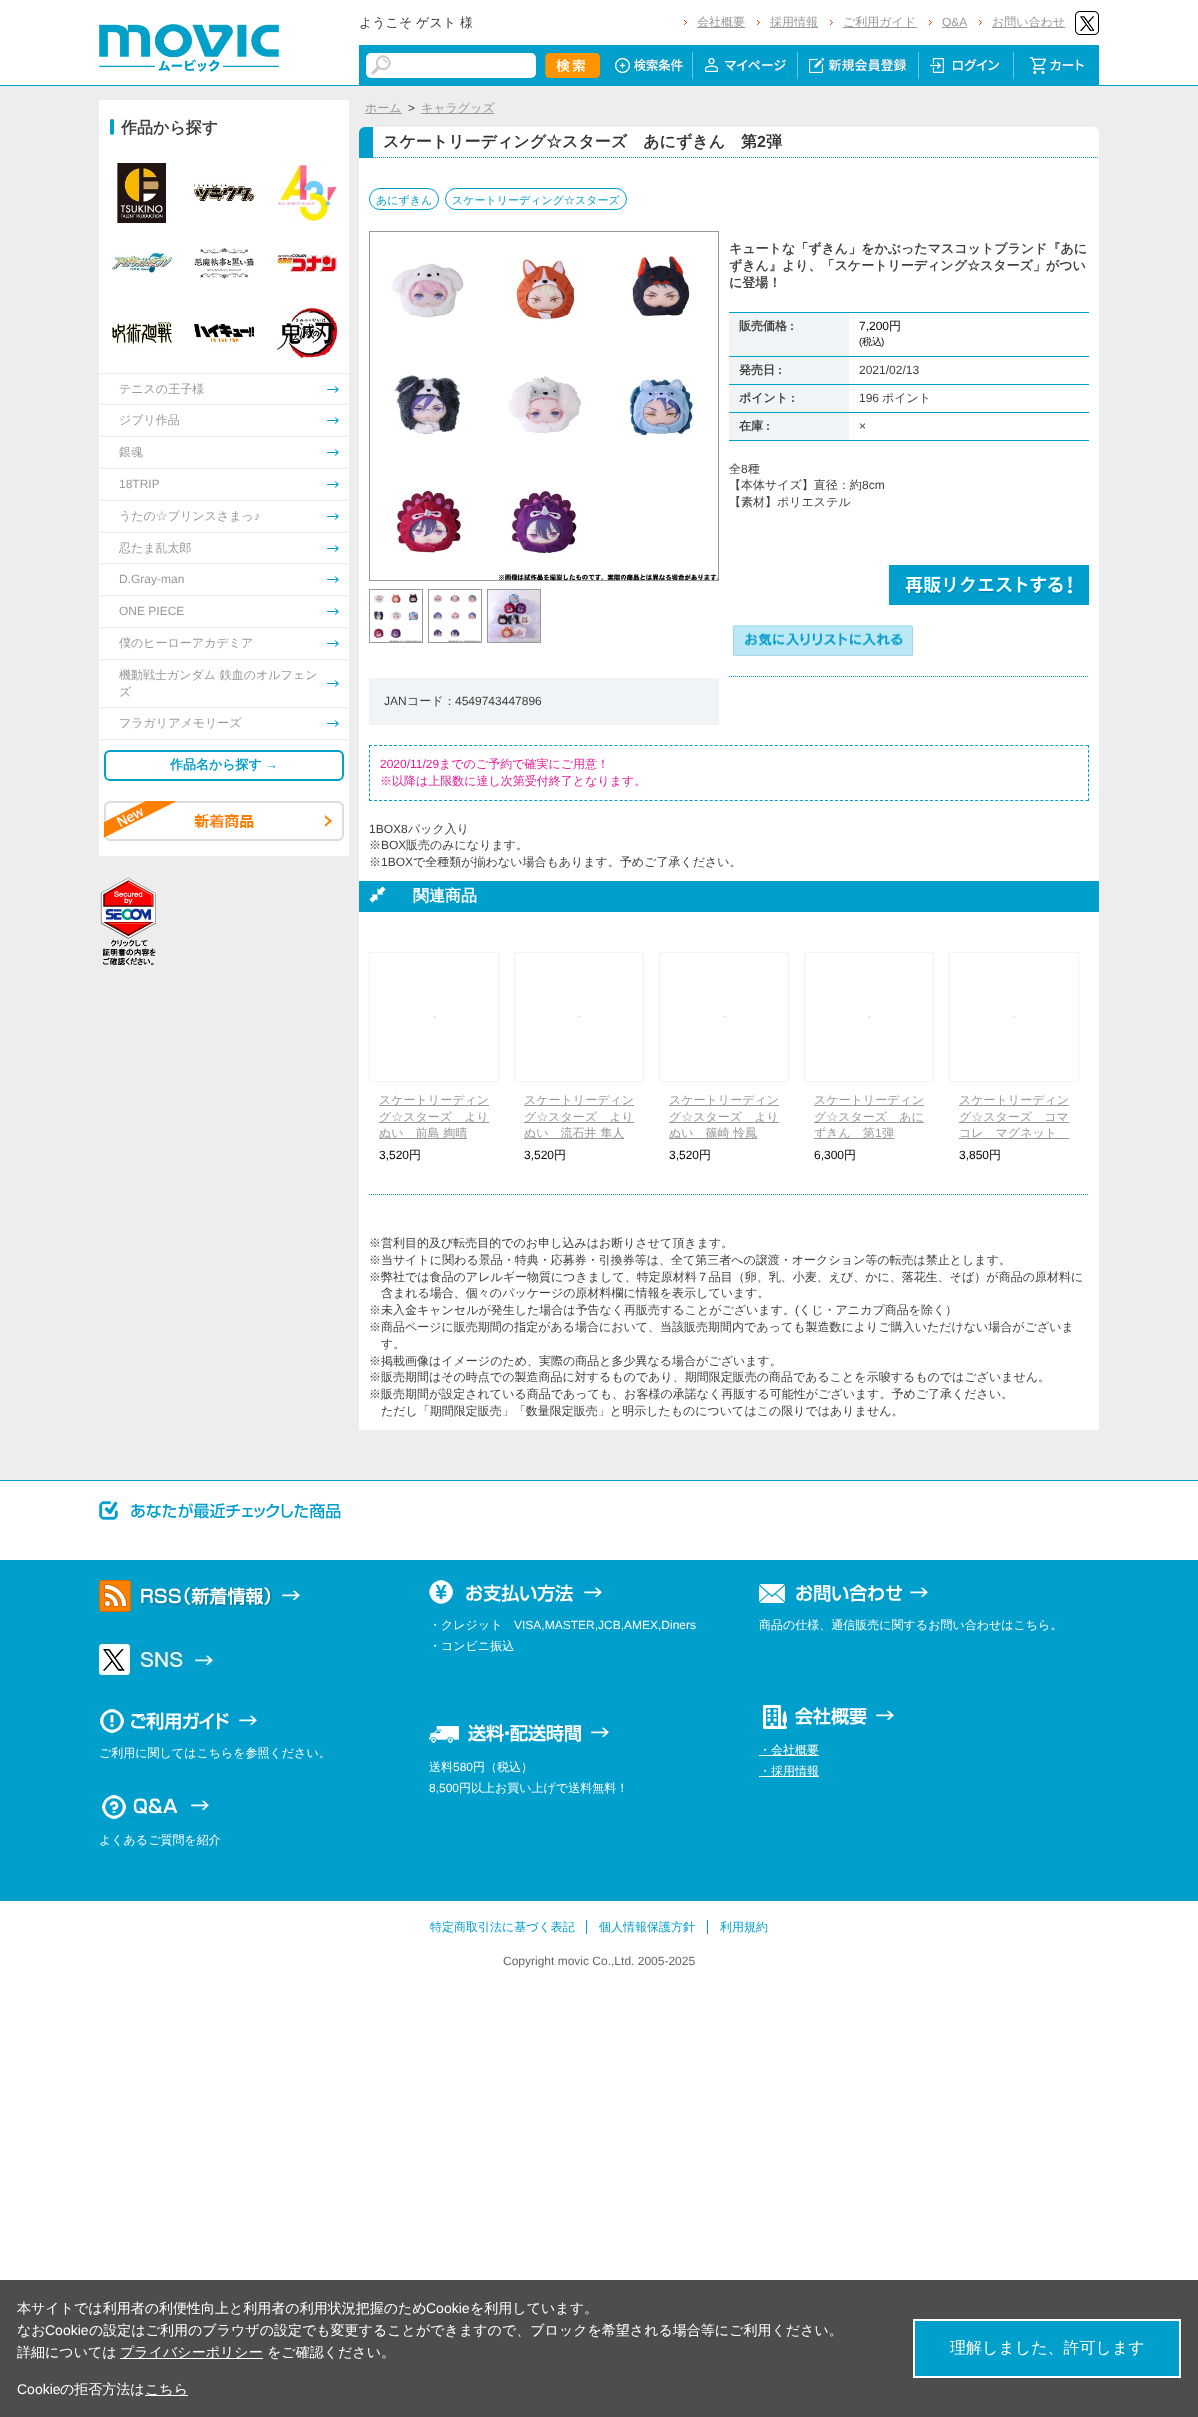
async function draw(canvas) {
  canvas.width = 1198;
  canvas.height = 2417;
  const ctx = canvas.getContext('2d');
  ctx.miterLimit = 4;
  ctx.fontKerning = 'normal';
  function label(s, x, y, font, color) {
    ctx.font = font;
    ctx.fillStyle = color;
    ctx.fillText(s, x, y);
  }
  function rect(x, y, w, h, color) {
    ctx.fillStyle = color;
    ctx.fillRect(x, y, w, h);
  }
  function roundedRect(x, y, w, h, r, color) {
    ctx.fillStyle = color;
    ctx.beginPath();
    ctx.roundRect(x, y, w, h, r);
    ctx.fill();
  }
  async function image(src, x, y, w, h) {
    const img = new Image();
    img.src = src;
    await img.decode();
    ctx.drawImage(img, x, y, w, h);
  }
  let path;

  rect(0, 0, 1198, 2417, '#fff');
  rect(0, 86, 1198, 1394, '#ededed');
  rect(0, 85, 1198, 1, '#009fcc');
  await image('assets/img1.png', 99, 24, 180, 48);
  label('ようこそ ゲスト 様', 359, 27, '500 13px WenQuanYi Zen Hei', '#404040');
  await image('assets/img2.png', 684, 20, 3, 5);
  rect(697, 27, 48, 1, '#999');
  label('会社概要', 697, 26, '500 12px WenQuanYi Zen Hei', '#999');
  await image('assets/img2.png', 757, 20, 3, 5);
  rect(770, 27, 48, 1, '#999');
  label('採用情報', 770, 26, '500 12px WenQuanYi Zen Hei', '#999');
  await image('assets/img2.png', 830, 20, 3, 5);
  rect(843, 27, 74, 1, '#999');
  label('ご利用ガイド', 843, 26, '500 12px WenQuanYi Zen Hei', '#999');
  await image('assets/img2.png', 929, 20, 3, 5);
  rect(942, 27, 25, 1, '#999');
  label('Q&A', 942, 26, '12px Liberation Sans', '#999');
  await image('assets/img2.png', 979, 20, 3, 5);
  rect(992, 27, 73, 1, '#999');
  label('お問い合わせ', 992, 26, '500 12px WenQuanYi Zen Hei', '#999');
  await image('assets/img3.png', 1075, 11, 24, 24);
  rect(359, 45, 740, 40, '#009fcc');
  await image('assets/img4.png', 366, 53, 170, 25);
  await image('assets/img5.png', 545, 53, 55, 25);
  await image('assets/img6.png', 615, 58, 68, 15);
  rect(692, 52, 1, 27, '#6bc6e1');
  await image('assets/img7.png', 705, 58, 81, 14);
  rect(797, 52, 1, 27, '#6bc6e1');
  await image('assets/img8.png', 809, 58, 97, 15);
  rect(918, 52, 1, 27, '#6bc6e1');
  await image('assets/img9.png', 930, 58, 69, 15);
  rect(1013, 52, 1, 27, '#6bc6e1');
  await image('assets/img10.png', 1030, 57, 54, 17);
  rect(99, 100, 250, 756, '#fff');
  roundedRect(110, 119, 4, 16, 2, '#009fcc');
  label('作品から探す', 121, 133, 'bold 16px WenQuanYi Zen Hei', '#404040');
  await image('assets/img11.png', 117, 163, 49, 60);
  await image('assets/img12.png', 194, 182, 60, 20);
  await image('assets/img13.png', 277, 163, 60, 58);
  await image('assets/img14.png', 112, 252, 60, 24);
  await image('assets/img15.png', 194, 248, 60, 32);
  await image('assets/img16.png', 277, 252, 60, 23);
  await image('assets/img17.png', 112, 322, 60, 24);
  await image('assets/img18.png', 194, 324, 60, 22);
  await image('assets/img19.png', 277, 307, 60, 54);
  rect(99, 373, 250, 1, '#eee');
  rect(99, 404, 250, 1, '#eee');
  await image('assets/img20.png', 327, 386, 12, 7);
  label('テニスの王子様', 119, 393, '500 12px WenQuanYi Zen Hei', '#999');
  rect(99, 436, 250, 1, '#eee');
  await image('assets/img20.png', 327, 417, 12, 7);
  label('ジブリ作品', 119, 424, '500 12px WenQuanYi Zen Hei', '#999');
  rect(99, 468, 250, 1, '#eee');
  await image('assets/img20.png', 327, 449, 12, 7);
  label('銀魂', 119, 456, '500 12px WenQuanYi Zen Hei', '#999');
  rect(99, 500, 250, 1, '#eee');
  await image('assets/img20.png', 327, 481, 12, 7);
  label('18TRIP', 119, 488, '12px Liberation Sans', '#999');
  rect(99, 532, 250, 1, '#eee');
  await image('assets/img20.png', 327, 513, 12, 7);
  label('うたの☆プリンスさまっ', 119, 520, '500 12px WenQuanYi Zen Hei', '#999');
  label('♪', 254, 520, '12px Liberation Sans', '#999');
  rect(99, 563, 250, 1, '#eee');
  await image('assets/img20.png', 327, 545, 12, 7);
  label('忍たま乱太郎', 119, 552, '500 12px WenQuanYi Zen Hei', '#999');
  rect(99, 595, 250, 1, '#eee');
  await image('assets/img20.png', 327, 576, 12, 7);
  label('D.Gray-man', 119, 583, '12px Liberation Sans', '#999');
  rect(99, 627, 250, 1, '#eee');
  await image('assets/img20.png', 327, 608, 12, 7);
  label('ONE PIECE', 119, 615, '12px Liberation Sans', '#999');
  rect(99, 659, 250, 1, '#eee');
  await image('assets/img20.png', 327, 640, 12, 7);
  label('僕のヒーローアカデミア', 119, 647, '500 12px WenQuanYi Zen Hei', '#999');
  rect(99, 707, 250, 1, '#eee');
  await image('assets/img20.png', 327, 680, 12, 7);
  label('機動戦士ガンダム 鉄血のオルフェン', 119, 679, '500 12px WenQuanYi Zen Hei', '#999');
  label('ズ', 119, 696, '500 12px WenQuanYi Zen Hei', '#999');
  rect(99, 739, 250, 1, '#eee');
  await image('assets/img20.png', 327, 720, 12, 7);
  label('フラガリアメモリーズ', 119, 727, '500 12px WenQuanYi Zen Hei', '#999');
  ctx.beginPath();
  ctx.roundRect(105, 751, 238, 29, 5);
  ctx.strokeStyle = '#00a0ca';
  ctx.lineWidth = 2;
  ctx.stroke();
  label('作品名から探す', 170, 769, 'bold 13px WenQuanYi Zen Hei', '#009ecc');
  label('→', 265, 769, 'bold 13px Liberation Sans', '#009ecc');
  await image('assets/img21.png', 104, 801, 240, 40);
  await image('assets/img22.png', 100, 877, 56, 88);
  rect(359, 158, 740, 1272, '#fff');
  rect(365, 113, 37, 1, '#999');
  label('ホーム', 365, 112, '500 12px WenQuanYi Zen Hei', '#999');
  label('>', 408, 112, '12px Liberation Sans', '#404040');
  rect(421, 113, 73, 1, '#999');
  label('キャラグッズ', 421, 112, '500 12px WenQuanYi Zen Hei', '#999');
  rect(359, 127, 14, 31, '#009fcc');
  await image('assets/img23.png', 359, 127, 6, 6);
  rect(373, 127, 726, 31, '#fff');
  await image('assets/img24.png', 1095, 127, 4, 4);
  path = new Path2D('M373 157.5H1099');
  ctx.strokeStyle = '#009ece';
  ctx.lineWidth = 1;
  ctx.setLineDash([1, 1]);
  ctx.stroke(path);
  label('スケートリーディング☆スターズ　あにずきん　第', 383, 147, 'bold 16px WenQuanYi Zen Hei', '#333');
  label('2', 757, 147, 'bold 16px Liberation Sans', '#333');
  label('弾', 766, 147, 'bold 16px WenQuanYi Zen Hei', '#333');
  ctx.beginPath();
  ctx.roundRect(369.5, 188.5, 69, 21, 10.5);
  ctx.strokeStyle = '#009ecc';
  ctx.setLineDash([]);
  ctx.stroke();
  label('あにずきん', 376, 204, '500 11px WenQuanYi Zen Hei', '#009ecc');
  ctx.beginPath();
  ctx.roundRect(445.5, 188.5, 181, 21, 10.5);
  ctx.stroke();
  label('スケートリーディング☆スターズ', 452, 204, '500 11px WenQuanYi Zen Hei', '#009ecc');
  label('キュートな「ずきん」をかぶったマスコットブランド『あに', 729, 253, 'bold 13px WenQuanYi Zen Hei', '#404040');
  label('ずきん』より、「スケートリーディング☆スターズ」がつい', 729, 270, 'bold 13px WenQuanYi Zen Hei', '#404040');
  label('に登場！', 729, 287, 'bold 13px WenQuanYi Zen Hei', '#404040');
  rect(729, 312, 360, 1, '#009ece');
  rect(729, 313, 120, 43, '#f0f4f6');
  label('販売価格', 739, 330, 'bold 12px WenQuanYi Zen Hei', '#404040');
  label(':', 790, 330, 'bold 12px Liberation Sans', '#404040');
  rect(729, 356, 360, 1, '#009ece');
  label('7,200', 859, 330, '12px Liberation Sans', '#000');
  label('円', 889, 330, '500 12px WenQuanYi Zen Hei', '#000');
  label('(', 859, 345, '10px Liberation Sans', '#000');
  label('税込', 862, 345, '500 10px WenQuanYi Zen Hei', '#000');
  label(')', 881, 345, '10px Liberation Sans', '#000');
  rect(729, 357, 120, 27, '#f0f4f6');
  label('発売日', 739, 374, 'bold 12px WenQuanYi Zen Hei', '#404040');
  label(':', 778, 374, 'bold 12px Liberation Sans', '#404040');
  rect(729, 384, 360, 1, '#009ece');
  label('2021/02/13', 859, 374, '12px Liberation Sans', '#404040');
  rect(729, 385, 120, 27, '#f0f4f6');
  label('ポイント', 739, 402, 'bold 12px WenQuanYi Zen Hei', '#404040');
  label(':', 791, 402, 'bold 12px Liberation Sans', '#404040');
  rect(729, 412, 360, 1, '#009ece');
  label('196', 859, 402, '12px Liberation Sans', '#404040');
  label('ポイント', 882, 402, '500 12px WenQuanYi Zen Hei', '#404040');
  rect(729, 413, 120, 27, '#f0f4f6');
  label('在庫', 739, 430, 'bold 12px WenQuanYi Zen Hei', '#404040');
  label(':', 766, 430, 'bold 12px Liberation Sans', '#404040');
  rect(729, 440, 360, 1, '#009ece');
  label('×', 859, 430, '12px Liberation Sans', '#404040');
  label('全', 729, 473, '500 12px WenQuanYi Zen Hei', '#404040');
  label('8', 741, 473, '12px Liberation Sans', '#404040');
  label('種', 748, 473, '500 12px WenQuanYi Zen Hei', '#404040');
  label('【本体サイズ】直径：約', 729, 489, '500 12px WenQuanYi Zen Hei', '#404040');
  label('8cm', 862, 489, '12px Liberation Sans', '#404040');
  label('【素材】ポリエステル', 729, 506, '500 12px WenQuanYi Zen Hei', '#404040');
  await image('assets/img25.png', 889, 565, 200, 40);
  await image('assets/img26.png', 733, 625, 180, 31);
  path = new Path2D('M729 676.5H1089');
  ctx.strokeStyle = '#009ece';
  ctx.setLineDash([1, 1]);
  ctx.stroke(path);
  ctx.strokeStyle = '#999';
  ctx.setLineDash([]);
  ctx.strokeRect(369.5, 231.5, 349, 349);
  await image('assets/img27.png', 392, 255, 326, 325);
  ctx.strokeRect(369.5, 589.5, 53, 53);
  await image('assets/img28.png', 373, 593, 49, 49);
  ctx.strokeRect(428.5, 589.5, 53, 53);
  await image('assets/img29.png', 433, 594, 48, 48);
  ctx.strokeRect(487.5, 589.5, 53, 53);
  await image('assets/img30.png', 488, 590, 52, 52);
  rect(369, 678, 350, 47, '#f0f4f6');
  label('JAN', 384, 705, '12px Liberation Sans', '#404040');
  label('コード：', 407, 705, '500 12px WenQuanYi Zen Hei', '#404040');
  label('4549743447896', 455, 705, '12px Liberation Sans', '#404040');
  path = new Path2D('M369 745.5H1089');
  ctx.strokeStyle = '#009fcc';
  ctx.setLineDash([3, 2.01]);
  ctx.stroke(path);
  path = new Path2D('M1088.5 745V801');
  ctx.setLineDash([3, 1.82]);
  ctx.stroke(path);
  path = new Path2D('M369 800.5H1089');
  ctx.setLineDash([3, 2.01]);
  ctx.stroke(path);
  path = new Path2D('M369.5 745V801');
  ctx.setLineDash([3, 1.82]);
  ctx.stroke(path);
  label('2020/11/29', 380, 768, '12px Liberation Sans', '#e41c96');
  label('までのご予約で確実にご用意！', 439, 768, '500 12px WenQuanYi Zen Hei', '#e41c96');
  label('※以降は上限数に達し次第受付終了となります。', 380, 785, '500 12px WenQuanYi Zen Hei', '#e41c96');
  label('1BOX8', 369, 833, '12px Liberation Sans', '#404040');
  label('パック入り', 408, 833, '500 12px WenQuanYi Zen Hei', '#404040');
  label('※', 369, 849, '500 12px WenQuanYi Zen Hei', '#404040');
  label('BOX', 381, 849, '12px Liberation Sans', '#404040');
  label('販売のみになります。', 406, 849, '500 12px WenQuanYi Zen Hei', '#404040');
  label('※', 369, 866, '500 12px WenQuanYi Zen Hei', '#404040');
  label('1BOX', 381, 866, '12px Liberation Sans', '#404040');
  label('で全種類が揃わない場合もあります。予めご了承ください。', 413, 866, '500 12px WenQuanYi Zen Hei', '#404040');
  rect(359, 881, 740, 31, '#009fcc');
  await image('assets/img31.png', 369, 886, 17, 17);
  label('関連商品', 413, 901, 'bold 16px WenQuanYi Zen Hei', '#fff');
  path = new Path2D('M369 1194.5H1089');
  ctx.setLineDash([1, 1]);
  ctx.stroke(path);
  ctx.strokeStyle = '#f3f3f3';
  ctx.setLineDash([]);
  ctx.strokeRect(369.5, 952.5, 129, 129);
  rect(434, 1016, 1, 1, '#c3c3c3');
  rect(379, 1105, 110, 1, '#999');
  label('スケートリーディン', 379, 1104, '500 12px WenQuanYi Zen Hei', '#999');
  rect(379, 1122, 110, 1, '#999');
  label('グ☆スターズ　より', 379, 1121, '500 12px WenQuanYi Zen Hei', '#999');
  rect(379, 1138, 88, 1, '#999');
  label('ぬい　前島 絢晴', 379, 1137, '500 12px WenQuanYi Zen Hei', '#999');
  label('3,520', 379, 1159, '12px Liberation Sans', '#000');
  label('円', 409, 1159, '500 12px WenQuanYi Zen Hei', '#000');
  ctx.strokeRect(514.5, 952.5, 129, 129);
  rect(579, 1016, 1, 1, '#c3c3c3');
  rect(524, 1105, 110, 1, '#999');
  label('スケートリーディン', 524, 1104, '500 12px WenQuanYi Zen Hei', '#999');
  rect(524, 1122, 110, 1, '#999');
  label('グ☆スターズ　より', 524, 1121, '500 12px WenQuanYi Zen Hei', '#999');
  rect(524, 1138, 100, 1, '#999');
  label('ぬい　流石井 隼人', 524, 1137, '500 12px WenQuanYi Zen Hei', '#999');
  label('3,520', 524, 1159, '12px Liberation Sans', '#000');
  label('円', 554, 1159, '500 12px WenQuanYi Zen Hei', '#000');
  ctx.strokeRect(659.5, 952.5, 129, 129);
  rect(724, 1016, 1, 1, '#c3c3c3');
  rect(669, 1105, 110, 1, '#999');
  label('スケートリーディン', 669, 1104, '500 12px WenQuanYi Zen Hei', '#999');
  rect(669, 1122, 110, 1, '#999');
  label('グ☆スターズ　より', 669, 1121, '500 12px WenQuanYi Zen Hei', '#999');
  rect(669, 1138, 88, 1, '#999');
  label('ぬい　篠崎 怜鳳', 669, 1137, '500 12px WenQuanYi Zen Hei', '#999');
  label('3,520', 669, 1159, '12px Liberation Sans', '#000');
  label('円', 699, 1159, '500 12px WenQuanYi Zen Hei', '#000');
  ctx.strokeRect(804.5, 952.5, 129, 129);
  rect(869, 1016, 1, 1, '#c3c3c3');
  rect(814, 1105, 110, 1, '#999');
  label('スケートリーディン', 814, 1104, '500 12px WenQuanYi Zen Hei', '#999');
  rect(814, 1122, 110, 1, '#999');
  label('グ☆スターズ　あに', 814, 1121, '500 12px WenQuanYi Zen Hei', '#999');
  rect(814, 1138, 80, 1, '#999');
  label('ずきん　第', 814, 1137, '500 12px WenQuanYi Zen Hei', '#999');
  label('1', 875, 1137, '12px Liberation Sans', '#999');
  label('弾', 882, 1137, '500 12px WenQuanYi Zen Hei', '#999');
  label('6,300', 814, 1159, '12px Liberation Sans', '#000');
  label('円', 844, 1159, '500 12px WenQuanYi Zen Hei', '#000');
  ctx.strokeRect(949.5, 952.5, 129, 129);
  rect(1014, 1016, 1, 1, '#c3c3c3');
  rect(959, 1105, 110, 1, '#999');
  label('スケートリーディン', 959, 1104, '500 12px WenQuanYi Zen Hei', '#999');
  rect(959, 1122, 110, 1, '#999');
  label('グ☆スターズ　コマ', 959, 1121, '500 12px WenQuanYi Zen Hei', '#999');
  rect(959, 1138, 110, 1, '#999');
  label('コレ　マグネット', 959, 1137, '500 12px WenQuanYi Zen Hei', '#999');
  label('3,850', 959, 1159, '12px Liberation Sans', '#000');
  label('円', 989, 1159, '500 12px WenQuanYi Zen Hei', '#000');
  label('※営利目的及び転売目的でのお申し込みはお断りさせて頂きます。', 369, 1247, '500 12px WenQuanYi Zen Hei', '#404040');
  label('※当サイトに関わる景品・特典・応募券・引換券等は、全て第三者への譲渡・オークション等の転売は禁止とします。', 369, 1264, '500 12px WenQuanYi Zen Hei', '#404040');
  label('※弊社では食品のアレルギー物質につきまして、特定原材料７品目（卵、乳、小麦、えび、かに、落花生、そば）が商品の原材料に', 369, 1281, '500 12px WenQuanYi Zen Hei', '#404040');
  label('含まれる場合、個々のパッケージの原材料欄に情報を表示しています。', 381, 1297, '500 12px WenQuanYi Zen Hei', '#404040');
  label('※未入金キャンセルが発生した場合は予告なく再販売することがございます。', 369, 1314, '500 12px WenQuanYi Zen Hei', '#404040');
  label('(', 795, 1314, '12px Liberation Sans', '#404040');
  label('くじ・アニカプ商品を除く）', 799, 1314, '500 12px WenQuanYi Zen Hei', '#404040');
  label('※商品ページに販売期間の指定がある場合において、当該販売期間内であっても製造数によりご購入いただけない場合がございま', 369, 1331, '500 12px WenQuanYi Zen Hei', '#404040');
  label('す。', 381, 1348, '500 12px WenQuanYi Zen Hei', '#404040');
  label('※掲載画像はイメージのため、実際の商品と多少異なる場合がございます。', 369, 1365, '500 12px WenQuanYi Zen Hei', '#404040');
  label('※販売期間はその時点での製造商品に対するものであり、期間限定販売の商品であることを示唆するものではございません。', 369, 1381, '500 12px WenQuanYi Zen Hei', '#404040');
  label('※販売期間が設定されている商品であっても、お客様の承諾なく再販する可能性がございます。予めご了承ください。', 369, 1398, '500 12px WenQuanYi Zen Hei', '#404040');
  label('ただし「期間限定販売」「数量限定販売」と明示したものについてはこの限りではありません。', 381, 1415, '500 12px WenQuanYi Zen Hei', '#404040');
  rect(0, 1480, 1198, 1, '#009ecd');
  await image('assets/img32.png', 99, 1501, 242, 19);
  rect(0, 1560, 1198, 341, '#019fcc');
  await image('assets/img33.png', 99, 1580, 201, 32);
  await image('assets/img34.png', 99, 1643, 120, 33);
  await image('assets/img35.png', 100, 1709, 157, 24);
  label('ご利用に関してはこちらを参照ください。', 99, 1757, '500 12px WenQuanYi Zen Hei', '#fff');
  await image('assets/img36.png', 102, 1795, 107, 24);
  label('よくあるご質問を紹介', 99, 1844, '500 12px WenQuanYi Zen Hei', '#fff');
  await image('assets/img37.png', 429, 1580, 173, 24);
  label('・クレジット', 429, 1629, '500 12px WenQuanYi Zen Hei', '#fff');
  label('VISA,MASTER,JCB,AMEX,Diners', 514, 1629, '12px Liberation Sans', '#fff');
  label('・コンビニ振込', 429, 1650, '500 12px WenQuanYi Zen Hei', '#fff');
  await image('assets/img38.png', 429, 1724, 180, 19);
  label('送料', 429, 1771, '500 12px WenQuanYi Zen Hei', '#fff');
  label('580', 453, 1771, '12px Liberation Sans', '#fff');
  label('円（税込）', 473, 1771, '500 12px WenQuanYi Zen Hei', '#fff');
  label('8,500', 429, 1792, '12px Liberation Sans', '#fff');
  label('円以上お買い上げで送料無料！', 459, 1792, '500 12px WenQuanYi Zen Hei', '#fff');
  await image('assets/img39.png', 759, 1584, 169, 19);
  label('商品の仕様、通信販売に関するお問い合わせはこちら。', 759, 1629, '500 12px WenQuanYi Zen Hei', '#fff');
  await image('assets/img40.png', 763, 1705, 131, 24);
  rect(759, 1755, 60, 1, '#fff');
  label('・会社概要', 759, 1754, '500 12px WenQuanYi Zen Hei', '#fff');
  rect(759, 1776, 60, 1, '#fff');
  label('・採用情報', 759, 1775, '500 12px WenQuanYi Zen Hei', '#fff');
  label('特定商取引法に基づく表記', 430, 1931, '500 12px WenQuanYi Zen Hei', '#009ecc');
  label('個人情報保護方針', 599, 1931, '500 12px WenQuanYi Zen Hei', '#009ecc');
  rect(586, 1920, 1, 14, '#009ecd');
  label('利用規約', 720, 1931, '500 12px WenQuanYi Zen Hei', '#009ecc');
  rect(707, 1920, 1, 14, '#009ecd');
  label('Copyright movic Co.,Ltd. 2005-2025', 503, 1965, '12px Liberation Sans', '#666');
  rect(0, 2280, 1198, 137, '#4d4d4d');
  label('本サイトでは利用者の利便性向上と利用者の利用状況把握のため', 17, 2313, '500 14px WenQuanYi Zen Hei', '#fff');
  label('Cookie', 426, 2313, '14px Liberation Sans', '#fff');
  label('を利用しています。', 470, 2313, '500 14px WenQuanYi Zen Hei', '#fff');
  label('なお', 17, 2335, '500 14px WenQuanYi Zen Hei', '#fff');
  label('Cookie', 45, 2335, '14px Liberation Sans', '#fff');
  label('の設定はご利用のブラウザの設定でも変更することができますので、ブロックを希望される場合等にご利用ください。', 89, 2335, '500 14px WenQuanYi Zen Hei', '#fff');
  label('詳細については', 17, 2357, '500 14px WenQuanYi Zen Hei', '#fff');
  rect(120, 2358, 143, 1, '#fff');
  label('プライバシーポリシー', 120, 2357, '500 14px WenQuanYi Zen Hei', '#fff');
  label('をご確認ください。', 267, 2357, '500 14px WenQuanYi Zen Hei', '#fff');
  label('Cookie', 17, 2394, '14px Liberation Sans', '#fff');
  label('の拒否方法は', 60, 2394, '500 14px WenQuanYi Zen Hei', '#fff');
  rect(145, 2395, 43, 1, '#fff');
  label('こちら', 145, 2394, '500 14px WenQuanYi Zen Hei', '#fff');
  ctx.fillStyle = '#009fcc';
  ctx.beginPath();
  ctx.rect(914, 2320, 266, 57);
  ctx.fill();
  ctx.strokeStyle = '#fff';
  ctx.lineWidth = 2;
  ctx.stroke();
  label('理解しました、許可します', 950, 2353, '500 16px WenQuanYi Zen Hei', '#fff');
}

draw(document.querySelector('canvas'));
